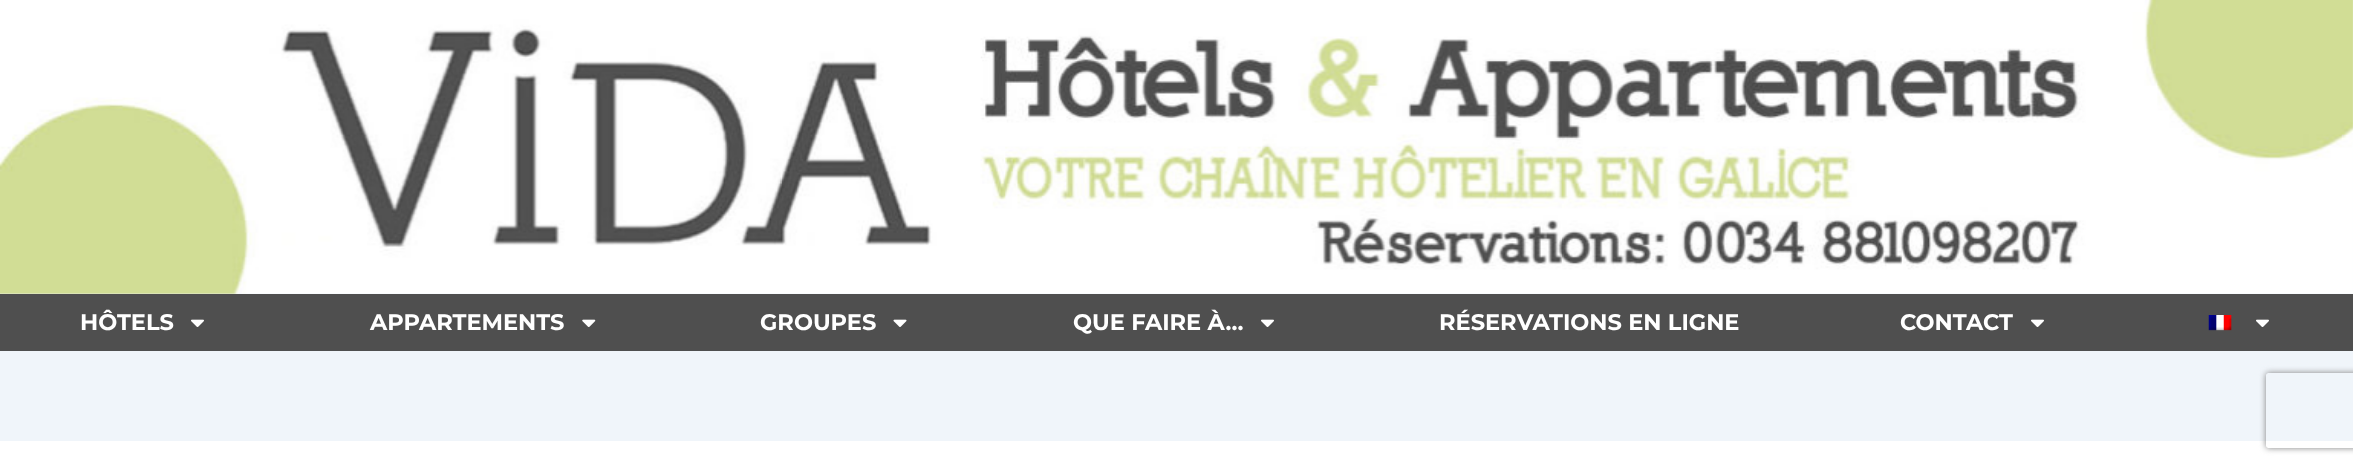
async function draw(canvas) {
  canvas.width = 2353;
  canvas.height = 465;
  const ctx = canvas.getContext('2d');
  ctx.miterLimit = 4;
  ctx.fontKerning = 'normal';
  function label(s, x, y, font, color) {
    ctx.font = font;
    ctx.fillStyle = color;
    ctx.fillText(s, x, y);
  }
  function rect(x, y, w, h, color) {
    ctx.fillStyle = color;
    ctx.fillRect(x, y, w, h);
  }
  async function image(src, x, y, w, h) {
    const img = new Image();
    img.src = src;
    await img.decode();
    ctx.drawImage(img, x, y, w, h);
  }
  let path;

  rect(0, 0, 2353, 465, '#f0f5fa');
  await image('assets/img1.png', 0, 0, 2353, 294);
  rect(0, 294, 2353, 57, '#4f4f4f');
  label('HÔTELS', 80, 330, 'bold 22.5px Montserrat', '#fff');
  await image('assets/img2.png', 191, 319, 13, 8);
  label('APPARTEMENTS', 370, 330, 'bold 22.5px Montserrat', '#fff');
  await image('assets/img3.png', 582, 319, 14, 8);
  label('GROUPES', 760, 330, 'bold 22.5px Montserrat', '#fff');
  await image('assets/img4.png', 893, 319, 14, 8);
  label('QUE FAIRE À…', 1073, 330, 'bold 22.5px Montserrat', '#fff');
  await image('assets/img2.png', 1261, 319, 13, 8);
  label('RÉSERVATIONS EN LIGNE', 1439, 330, 'bold 22.5px Montserrat', '#fff');
  label('CONTACT', 1900, 330, 'bold 22.5px Montserrat', '#fff');
  await image('assets/img2.png', 2031, 319, 13, 8);
  await image('assets/img5.png', 2208, 315, 24, 16);
  await image('assets/img2.png', 2256, 319, 13, 8);
  rect(0, 441, 2353, 24, '#fff');
  ctx.save();
  path = new Path2D('M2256 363H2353V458H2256ZM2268.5 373H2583.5C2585 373 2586 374 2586 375.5V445.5C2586 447 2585 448 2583.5 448H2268.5C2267 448 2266 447 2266 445.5V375.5C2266 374 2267 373 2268.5 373Z');
  ctx.clip(path, 'evenodd');
  ctx.fillStyle = '#808080';
  ctx.filter = 'blur(3px)';
  ctx.beginPath();
  ctx.roundRect(2266, 373, 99, 75, 2.5);
  ctx.fill();
  ctx.filter = 'none';
  ctx.restore();
}

draw(document.querySelector('canvas'));
